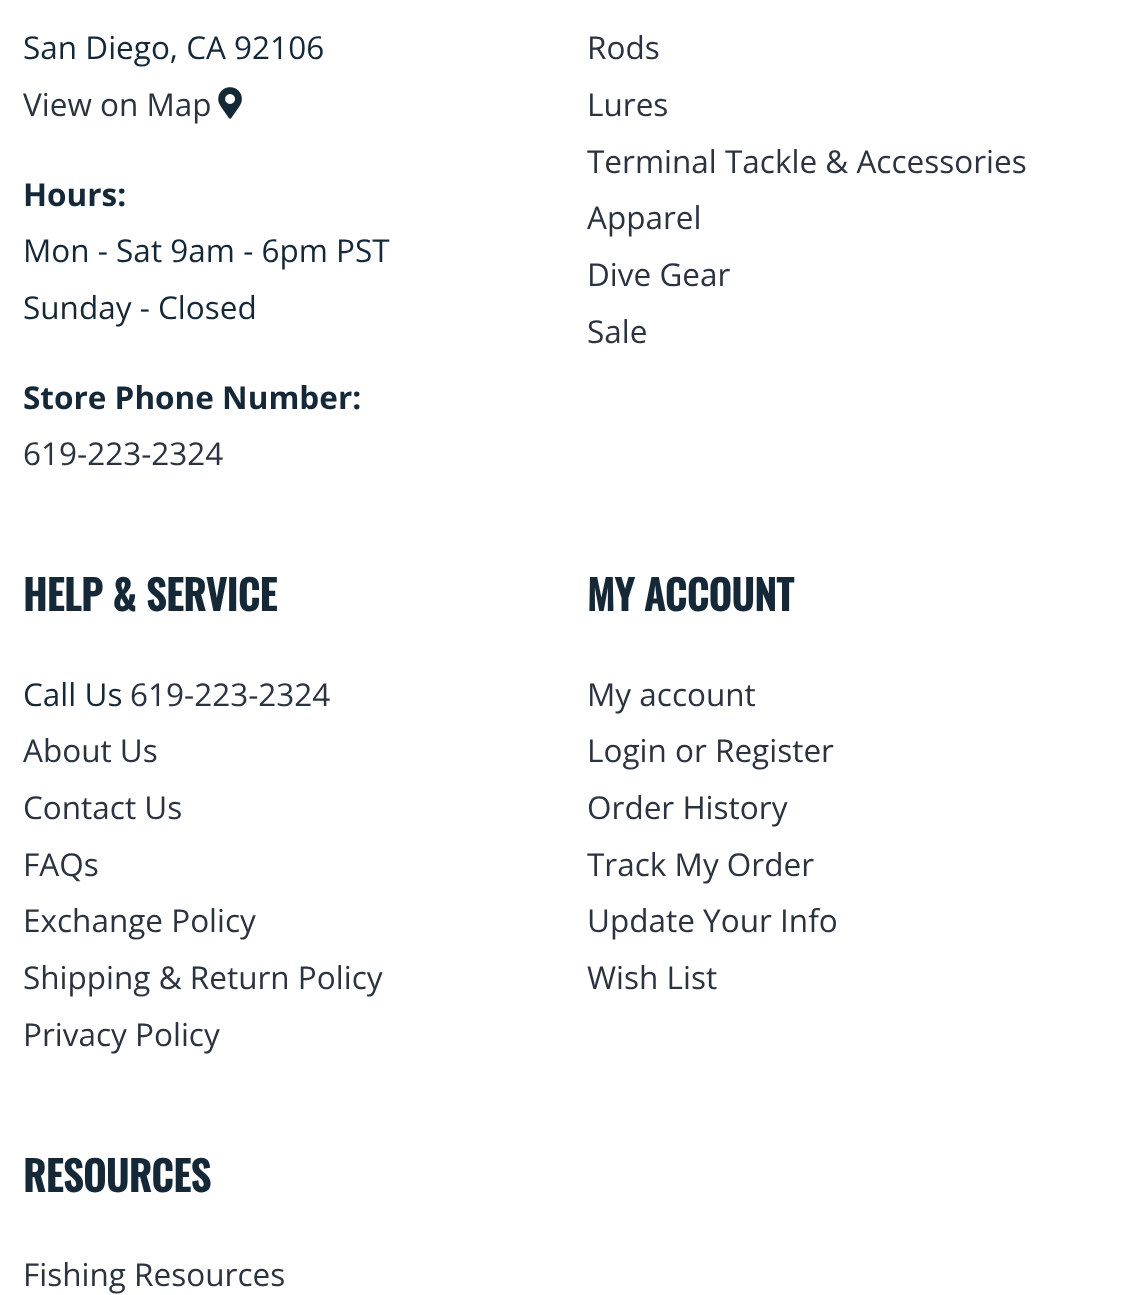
async function draw(canvas) {
  canvas.width = 1129;
  canvas.height = 1295;
  const ctx = canvas.getContext('2d');
  ctx.miterLimit = 4;
  ctx.fontKerning = 'normal';
  function label(s, x, y, font, color) {
    ctx.font = font;
    ctx.fillStyle = color;
    ctx.fillText(s, x, y);
  }
  function rect(x, y, w, h, color) {
    ctx.fillStyle = color;
    ctx.fillRect(x, y, w, h);
  }
  async function image(src, x, y, w, h) {
    const img = new Image();
    img.src = src;
    await img.decode();
    ctx.drawImage(img, x, y, w, h);
  }

  rect(0, 0, 1129, 1295, '#fff');
  label('San Diego, CA 92106', 23, 59, '31.5px Open Sans', '#152837');
  label('View on Map', 23, 116, '31.5px Open Sans', '#2b3340');
  await image('assets/img1.png', 218, 87, 24, 32);
  label('Hours:', 23, 206, 'bold 31.5px Open Sans', '#152837');
  label('Mon - Sat 9am - 6pm PST', 23, 262, '31.5px Open Sans', '#152837');
  label('Sunday - Closed', 23, 319, '31.5px Open Sans', '#152837');
  label('Store Phone Number:', 23, 409, 'bold 31.5px Open Sans', '#152837');
  label('619-223-2324', 23, 465, '31.5px Open Sans', '#2b3340');
  label('Rods', 587, 59, '31.5px Open Sans', '#2b3340');
  label('Lures', 587, 116, '31.5px Open Sans', '#2b3340');
  label('Terminal Tackle & Accessories', 587, 173, '31.5px Open Sans', '#2b3340');
  label('Apparel', 587, 229, '31.5px Open Sans', '#2b3340');
  label('Dive Gear', 587, 286, '31.5px Open Sans', '#2b3340');
  label('Sale', 587, 343, '31.5px Open Sans', '#2b3340');
  label('HELP & SERVICE', 23, 611, 'bold 40.5px Oswald', '#152837');
  label('Call Us', 23, 706, '31.5px Open Sans', '#152837');
  label('619-223-2324', 130, 706, '31.5px Open Sans', '#2b3340');
  label('About Us', 23, 762, '31.5px Open Sans', '#2b3340');
  label('Contact Us', 23, 819, '31.5px Open Sans', '#2b3340');
  label('FAQs', 23, 876, '31.5px Open Sans', '#2b3340');
  label('Exchange Policy', 23, 932, '31.5px Open Sans', '#2b3340');
  label('Shipping & Return Policy', 23, 989, '31.5px Open Sans', '#2b3340');
  label('Privacy Policy', 23, 1046, '31.5px Open Sans', '#2b3340');
  label('MY ACCOUNT', 587, 611, 'bold 40.5px Oswald', '#152837');
  label('My account', 587, 706, '31.5px Open Sans', '#2b3340');
  label('Login or Register', 587, 762, '31.5px Open Sans', '#2b3340');
  label('Order History', 587, 819, '31.5px Open Sans', '#2b3340');
  label('Track My Order', 587, 876, '31.5px Open Sans', '#2b3340');
  label('Update Your Info', 587, 932, '31.5px Open Sans', '#2b3340');
  label('Wish List', 587, 989, '31.5px Open Sans', '#2b3340');
  label('RESOURCES', 23, 1192, 'bold 40.5px Oswald', '#152837');
  label('Fishing Resources', 23, 1286, '31.5px Open Sans', '#2b3340');
}

draw(document.querySelector('canvas'));
